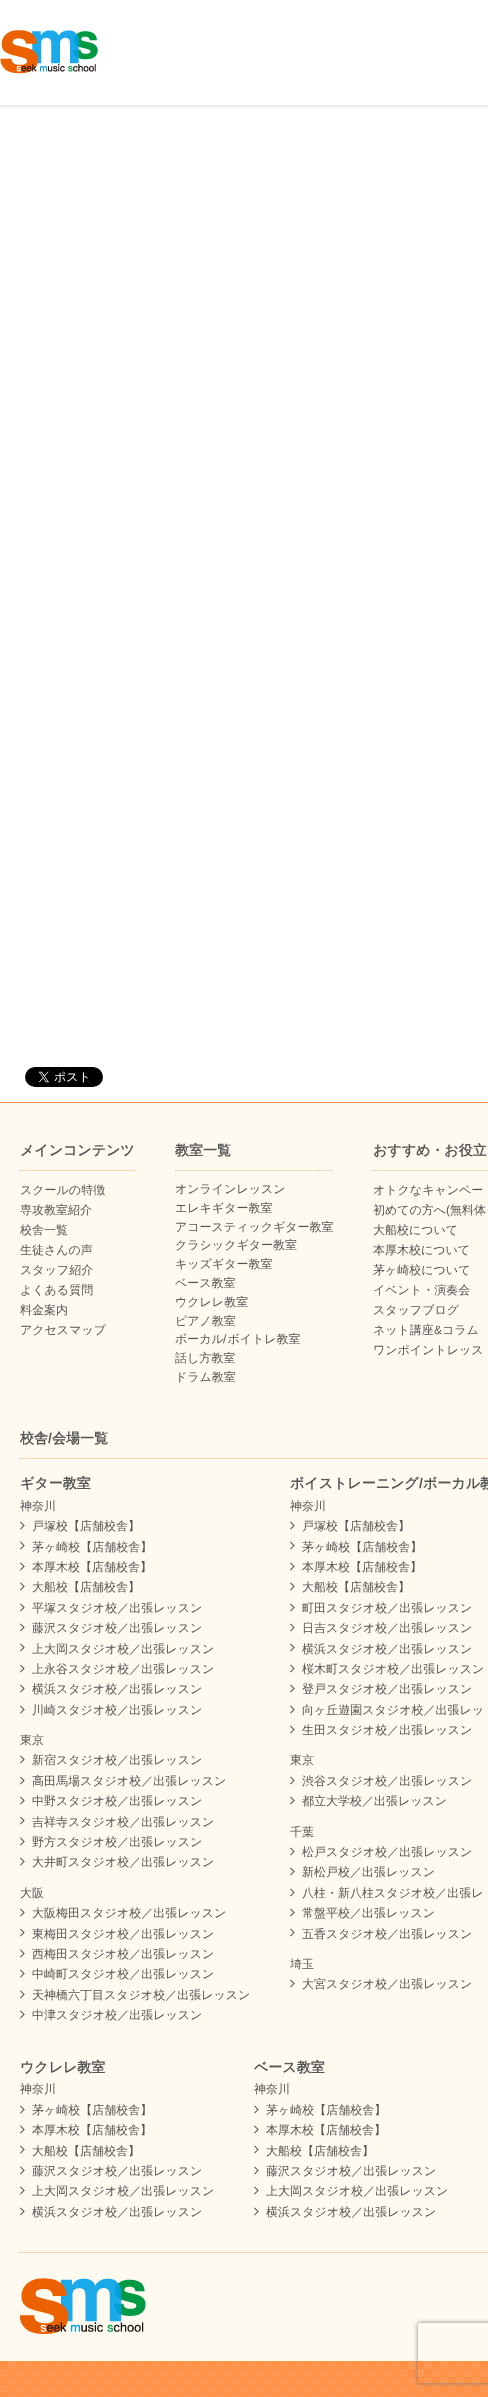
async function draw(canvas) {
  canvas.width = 488;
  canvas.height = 2397;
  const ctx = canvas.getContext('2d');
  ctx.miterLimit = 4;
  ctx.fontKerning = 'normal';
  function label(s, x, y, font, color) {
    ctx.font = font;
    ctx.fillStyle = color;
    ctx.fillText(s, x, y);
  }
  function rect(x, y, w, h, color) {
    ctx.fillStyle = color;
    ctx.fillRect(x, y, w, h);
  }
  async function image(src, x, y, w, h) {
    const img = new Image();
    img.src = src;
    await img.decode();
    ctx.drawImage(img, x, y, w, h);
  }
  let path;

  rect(0, 0, 488, 2397, '#fff');
  ctx.save();
  ctx.beginPath();
  ctx.rect(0, 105, 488, 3);
  ctx.clip();
  ctx.fillStyle = '#0000001a';
  ctx.filter = 'blur(1.5px)';
  ctx.beginPath();
  ctx.rect(0, 2, 488, 105);
  ctx.fill();
  ctx.filter = 'none';
  ctx.restore();
  await image('assets/img1.png', 0, 30, 98, 44);
  rect(0, 1103, 488, 1258, '#fffaf0');
  rect(0, 1102, 488, 1, '#ff9146');
  await image('assets/img2.png', 25, 1067, 78, 20);
  path = new Path2D('M20 1170.5H135');
  ctx.strokeStyle = '#ffb381';
  ctx.setLineDash([1, 1]);
  ctx.stroke(path);
  label('メインコンテンツ', 20, 1155, 'bold 14px WenQuanYi Zen Hei', '#555');
  label('スクールの特徴', 20, 1194, '500 12px WenQuanYi Zen Hei', '#555');
  label('専攻教室紹介', 20, 1214, '500 12px WenQuanYi Zen Hei', '#555');
  label('校舎一覧', 20, 1234, '500 12px WenQuanYi Zen Hei', '#555');
  label('生徒さんの声', 20, 1254, '500 12px WenQuanYi Zen Hei', '#555');
  label('スタッフ紹介', 20, 1274, '500 12px WenQuanYi Zen Hei', '#555');
  label('よくある質問', 20, 1294, '500 12px WenQuanYi Zen Hei', '#555');
  label('料金案内', 20, 1314, '500 12px WenQuanYi Zen Hei', '#555');
  label('アクセスマップ', 20, 1334, '500 12px WenQuanYi Zen Hei', '#555');
  path = new Path2D('M175 1170.5H333');
  ctx.stroke(path);
  label('教室一覧', 175, 1155, 'bold 14px WenQuanYi Zen Hei', '#555');
  label('オンラインレッスン', 175, 1193, '500 12px WenQuanYi Zen Hei', '#555');
  label('エレキギター教室', 175, 1212, '500 12px WenQuanYi Zen Hei', '#555');
  label('アコースティックギター教室', 175, 1231, '500 12px WenQuanYi Zen Hei', '#555');
  label('クラシックギター教室', 175, 1249, '500 12px WenQuanYi Zen Hei', '#555');
  label('キッズギター教室', 175, 1268, '500 12px WenQuanYi Zen Hei', '#555');
  label('ベース教室', 175, 1287, '500 12px WenQuanYi Zen Hei', '#555');
  label('ウクレレ教室', 175, 1306, '500 12px WenQuanYi Zen Hei', '#555');
  label('ピアノ教室', 175, 1325, '500 12px WenQuanYi Zen Hei', '#555');
  label('ボーカル ボイトレ教室', 175, 1343, '500 12px WenQuanYi Zen Hei', '#555');
  label('/', 223, 1343, '12px Liberation Sans', '#555');
  label('話し方教室', 175, 1362, '500 12px WenQuanYi Zen Hei', '#555');
  label('ドラム教室', 175, 1381, '500 12px WenQuanYi Zen Hei', '#555');
  path = new Path2D('M373 1170.5H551');
  ctx.stroke(path);
  label('おすすめ・お役立', 373, 1155, 'bold 14px WenQuanYi Zen Hei', '#555');
  label('オトクなキャンペー', 373, 1194, '500 12px WenQuanYi Zen Hei', '#555');
  label('初めての方へ', 373, 1214, '500 12px WenQuanYi Zen Hei', '#555');
  label('(', 446, 1214, '12px Liberation Sans', '#555');
  label('無料体', 450, 1214, '500 12px WenQuanYi Zen Hei', '#555');
  label('大船校について', 373, 1234, '500 12px WenQuanYi Zen Hei', '#555');
  label('本厚木校について', 373, 1254, '500 12px WenQuanYi Zen Hei', '#555');
  label('茅ヶ崎校について', 373, 1274, '500 12px WenQuanYi Zen Hei', '#555');
  label('イベント・演奏会', 373, 1294, '500 12px WenQuanYi Zen Hei', '#555');
  label('スタッフブログ', 373, 1314, '500 12px WenQuanYi Zen Hei', '#555');
  label('ネット講座', 373, 1334, '500 12px WenQuanYi Zen Hei', '#555');
  label('&', 434, 1334, '12px Liberation Sans', '#555');
  label('コラム', 442, 1334, '500 12px WenQuanYi Zen Hei', '#555');
  label('ワンポイントレッス', 373, 1354, '500 12px WenQuanYi Zen Hei', '#555');
  path = new Path2D('M20 2252.5H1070');
  ctx.stroke(path);
  path = new Path2D('M20 1458.5H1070');
  ctx.stroke(path);
  label('校舎', 20, 1443, 'bold 14px WenQuanYi Zen Hei', '#555');
  label('/', 48, 1443, 'bold 14px Liberation Sans', '#555');
  label('会場一覧', 52, 1443, 'bold 14px WenQuanYi Zen Hei', '#555');
  label('ギター教室', 20, 1488, 'bold 14px WenQuanYi Zen Hei', '#555');
  label('神奈川', 20, 1510, '500 12px WenQuanYi Zen Hei', '#555');
  await image('assets/img3.png', 20, 1521, 5, 9);
  label('戸塚校【店舗校舎】', 32, 1530, '500 12px WenQuanYi Zen Hei', '#555');
  await image('assets/img3.png', 20, 1541, 5, 9);
  label('茅ヶ崎校【店舗校舎】', 32, 1551, '500 12px WenQuanYi Zen Hei', '#555');
  await image('assets/img3.png', 20, 1562, 5, 9);
  label('本厚木校【店舗校舎】', 32, 1571, '500 12px WenQuanYi Zen Hei', '#555');
  await image('assets/img3.png', 20, 1582, 5, 9);
  label('大船校【店舗校舎】', 32, 1591, '500 12px WenQuanYi Zen Hei', '#555');
  await image('assets/img3.png', 20, 1603, 5, 9);
  label('平塚スタジオ校／出張レッスン', 32, 1612, '500 12px WenQuanYi Zen Hei', '#555');
  await image('assets/img3.png', 20, 1623, 5, 9);
  label('藤沢スタジオ校／出張レッスン', 32, 1632, '500 12px WenQuanYi Zen Hei', '#555');
  await image('assets/img3.png', 20, 1643, 5, 9);
  label('上大岡スタジオ校／出張レッスン', 32, 1653, '500 12px WenQuanYi Zen Hei', '#555');
  await image('assets/img3.png', 20, 1664, 5, 9);
  label('上永谷スタジオ校／出張レッスン', 32, 1673, '500 12px WenQuanYi Zen Hei', '#555');
  await image('assets/img3.png', 20, 1684, 5, 9);
  label('横浜スタジオ校／出張レッスン', 32, 1693, '500 12px WenQuanYi Zen Hei', '#555');
  await image('assets/img3.png', 20, 1705, 5, 9);
  label('川崎スタジオ校／出張レッスン', 32, 1714, '500 12px WenQuanYi Zen Hei', '#555');
  label('東京', 20, 1744, '500 12px WenQuanYi Zen Hei', '#555');
  await image('assets/img3.png', 20, 1755, 5, 9);
  label('新宿スタジオ校／出張レッスン', 32, 1764, '500 12px WenQuanYi Zen Hei', '#555');
  await image('assets/img3.png', 20, 1776, 5, 9);
  label('高田馬場スタジオ校／出張レッスン', 32, 1785, '500 12px WenQuanYi Zen Hei', '#555');
  await image('assets/img3.png', 20, 1796, 5, 9);
  label('中野スタジオ校／出張レッスン', 32, 1805, '500 12px WenQuanYi Zen Hei', '#555');
  await image('assets/img3.png', 20, 1816, 5, 9);
  label('吉祥寺スタジオ校／出張レッスン', 32, 1826, '500 12px WenQuanYi Zen Hei', '#555');
  await image('assets/img3.png', 20, 1837, 5, 9);
  label('野方スタジオ校／出張レッスン', 32, 1846, '500 12px WenQuanYi Zen Hei', '#555');
  await image('assets/img3.png', 20, 1857, 5, 9);
  label('大井町スタジオ校／出張レッスン', 32, 1866, '500 12px WenQuanYi Zen Hei', '#555');
  label('大阪', 20, 1897, '500 12px WenQuanYi Zen Hei', '#555');
  await image('assets/img3.png', 20, 1908, 5, 9);
  label('大阪梅田スタジオ校／出張レッスン', 32, 1917, '500 12px WenQuanYi Zen Hei', '#555');
  await image('assets/img3.png', 20, 1928, 5, 9);
  label('東梅田スタジオ校／出張レッスン', 32, 1938, '500 12px WenQuanYi Zen Hei', '#555');
  await image('assets/img3.png', 20, 1949, 5, 9);
  label('西梅田スタジオ校／出張レッスン', 32, 1958, '500 12px WenQuanYi Zen Hei', '#555');
  await image('assets/img3.png', 20, 1969, 5, 9);
  label('中崎町スタジオ校／出張レッスン', 32, 1978, '500 12px WenQuanYi Zen Hei', '#555');
  await image('assets/img3.png', 20, 1990, 5, 9);
  label('天神橋六丁目スタジオ校／出張レッスン', 32, 1999, '500 12px WenQuanYi Zen Hei', '#555');
  await image('assets/img3.png', 20, 2010, 5, 9);
  label('中津スタジオ校／出張レッスン', 32, 2019, '500 12px WenQuanYi Zen Hei', '#555');
  label('ボイストレーニング', 290, 1488, 'bold 14px WenQuanYi Zen Hei', '#555');
  label('/', 419, 1488, 'bold 14px Liberation Sans', '#555');
  label('ボーカル教', 423, 1488, 'bold 14px WenQuanYi Zen Hei', '#555');
  label('神奈川', 290, 1510, '500 12px WenQuanYi Zen Hei', '#555');
  await image('assets/img3.png', 290, 1521, 5, 9);
  label('戸塚校【店舗校舎】', 302, 1530, '500 12px WenQuanYi Zen Hei', '#555');
  await image('assets/img3.png', 290, 1541, 5, 9);
  label('茅ヶ崎校【店舗校舎】', 302, 1551, '500 12px WenQuanYi Zen Hei', '#555');
  await image('assets/img3.png', 290, 1562, 5, 9);
  label('本厚木校【店舗校舎】', 302, 1571, '500 12px WenQuanYi Zen Hei', '#555');
  await image('assets/img3.png', 290, 1582, 5, 9);
  label('大船校【店舗校舎】', 302, 1591, '500 12px WenQuanYi Zen Hei', '#555');
  await image('assets/img3.png', 290, 1603, 5, 9);
  label('町田スタジオ校／出張レッスン', 302, 1612, '500 12px WenQuanYi Zen Hei', '#555');
  await image('assets/img3.png', 290, 1623, 5, 9);
  label('日吉スタジオ校／出張レッスン', 302, 1632, '500 12px WenQuanYi Zen Hei', '#555');
  await image('assets/img3.png', 290, 1643, 5, 9);
  label('横浜スタジオ校／出張レッスン', 302, 1653, '500 12px WenQuanYi Zen Hei', '#555');
  await image('assets/img3.png', 290, 1664, 5, 9);
  label('桜木町スタジオ校／出張レッスン', 302, 1673, '500 12px WenQuanYi Zen Hei', '#555');
  await image('assets/img3.png', 290, 1684, 5, 9);
  label('登戸スタジオ校／出張レッスン', 302, 1693, '500 12px WenQuanYi Zen Hei', '#555');
  await image('assets/img3.png', 290, 1705, 5, 9);
  label('向ヶ丘遊園スタジオ校／出張レッ', 302, 1714, '500 12px WenQuanYi Zen Hei', '#555');
  await image('assets/img3.png', 290, 1725, 5, 9);
  label('生田スタジオ校／出張レッスン', 302, 1734, '500 12px WenQuanYi Zen Hei', '#555');
  label('東京', 290, 1764, '500 12px WenQuanYi Zen Hei', '#555');
  await image('assets/img3.png', 290, 1776, 5, 9);
  label('渋谷スタジオ校／出張レッスン', 302, 1785, '500 12px WenQuanYi Zen Hei', '#555');
  await image('assets/img3.png', 290, 1796, 5, 9);
  label('都立大学校／出張レッスン', 302, 1805, '500 12px WenQuanYi Zen Hei', '#555');
  label('千葉', 290, 1836, '500 12px WenQuanYi Zen Hei', '#555');
  await image('assets/img3.png', 290, 1847, 5, 9);
  label('松戸スタジオ校／出張レッスン', 302, 1856, '500 12px WenQuanYi Zen Hei', '#555');
  await image('assets/img3.png', 290, 1867, 5, 9);
  label('新松戸校／出張レッスン', 302, 1876, '500 12px WenQuanYi Zen Hei', '#555');
  await image('assets/img3.png', 290, 1888, 5, 9);
  label('八柱・新八柱スタジオ校／出張レ', 302, 1897, '500 12px WenQuanYi Zen Hei', '#555');
  await image('assets/img3.png', 290, 1908, 5, 9);
  label('常盤平校／出張レッスン', 302, 1917, '500 12px WenQuanYi Zen Hei', '#555');
  await image('assets/img3.png', 290, 1928, 5, 9);
  label('五香スタジオ校／出張レッスン', 302, 1938, '500 12px WenQuanYi Zen Hei', '#555');
  label('埼玉', 290, 1968, '500 12px WenQuanYi Zen Hei', '#555');
  await image('assets/img3.png', 290, 1979, 5, 9);
  label('大宮スタジオ校／出張レッスン', 302, 1988, '500 12px WenQuanYi Zen Hei', '#555');
  label('ウクレレ教室', 20, 2072, 'bold 14px WenQuanYi Zen Hei', '#555');
  label('神奈川', 20, 2093, '500 12px WenQuanYi Zen Hei', '#555');
  await image('assets/img3.png', 20, 2105, 5, 9);
  label('茅ヶ崎校【店舗校舎】', 32, 2114, '500 12px WenQuanYi Zen Hei', '#555');
  await image('assets/img3.png', 20, 2125, 5, 9);
  label('本厚木校【店舗校舎】', 32, 2134, '500 12px WenQuanYi Zen Hei', '#555');
  await image('assets/img3.png', 20, 2145, 5, 9);
  label('大船校【店舗校舎】', 32, 2155, '500 12px WenQuanYi Zen Hei', '#555');
  await image('assets/img3.png', 20, 2166, 5, 9);
  label('藤沢スタジオ校／出張レッスン', 32, 2175, '500 12px WenQuanYi Zen Hei', '#555');
  await image('assets/img3.png', 20, 2186, 5, 9);
  label('上大岡スタジオ校／出張レッスン', 32, 2195, '500 12px WenQuanYi Zen Hei', '#555');
  await image('assets/img3.png', 20, 2207, 5, 9);
  label('横浜スタジオ校／出張レッスン', 32, 2216, '500 12px WenQuanYi Zen Hei', '#555');
  label('ベース教室', 254, 2072, 'bold 14px WenQuanYi Zen Hei', '#555');
  label('神奈川', 254, 2093, '500 12px WenQuanYi Zen Hei', '#555');
  await image('assets/img3.png', 254, 2105, 5, 9);
  label('茅ヶ崎校【店舗校舎】', 266, 2114, '500 12px WenQuanYi Zen Hei', '#555');
  await image('assets/img3.png', 254, 2125, 5, 9);
  label('本厚木校【店舗校舎】', 266, 2134, '500 12px WenQuanYi Zen Hei', '#555');
  await image('assets/img3.png', 254, 2145, 5, 9);
  label('大船校【店舗校舎】', 266, 2155, '500 12px WenQuanYi Zen Hei', '#555');
  await image('assets/img3.png', 254, 2166, 5, 9);
  label('藤沢スタジオ校／出張レッスン', 266, 2175, '500 12px WenQuanYi Zen Hei', '#555');
  await image('assets/img3.png', 254, 2186, 5, 9);
  label('上大岡スタジオ校／出張レッスン', 266, 2195, '500 12px WenQuanYi Zen Hei', '#555');
  await image('assets/img3.png', 254, 2207, 5, 9);
  label('横浜スタジオ校／出張レッスン', 266, 2216, '500 12px WenQuanYi Zen Hei', '#555');
  await image('assets/img4.png', 20, 2278, 126, 56);
  await image('assets/img5.png', 0, 2361, 488, 36);
  ctx.save();
  path = new Path2D('M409 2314H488V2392H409ZM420 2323H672C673 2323 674 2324 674 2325V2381C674 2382 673 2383 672 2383H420C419 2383 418 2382 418 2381V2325C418 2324 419 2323 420 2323Z');
  ctx.clip(path, 'evenodd');
  ctx.fillStyle = '#808080';
  ctx.filter = 'blur(2.5px)';
  ctx.beginPath();
  ctx.roundRect(418, 2323, 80, 60, 2);
  ctx.fill();
  ctx.filter = 'none';
  ctx.restore();
}

draw(document.querySelector('canvas'));
